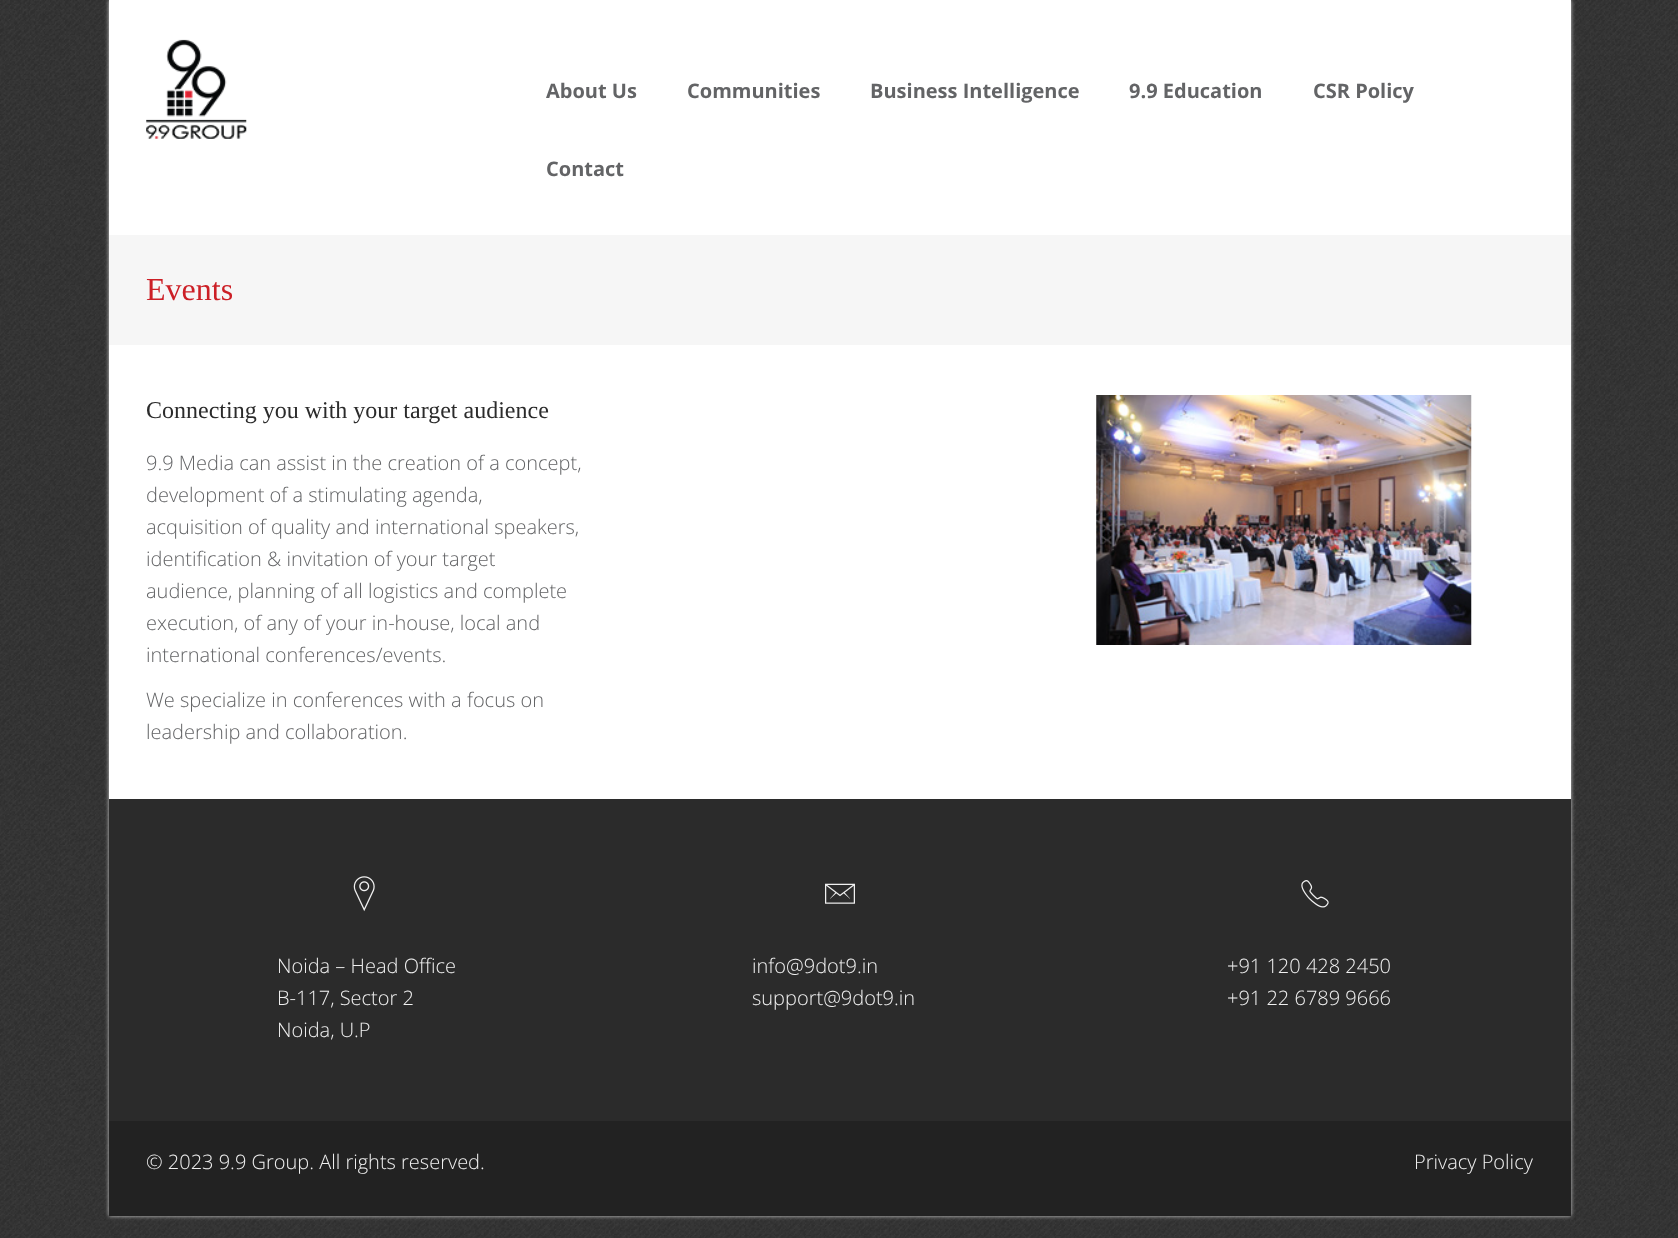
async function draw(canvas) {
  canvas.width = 1678;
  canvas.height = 1238;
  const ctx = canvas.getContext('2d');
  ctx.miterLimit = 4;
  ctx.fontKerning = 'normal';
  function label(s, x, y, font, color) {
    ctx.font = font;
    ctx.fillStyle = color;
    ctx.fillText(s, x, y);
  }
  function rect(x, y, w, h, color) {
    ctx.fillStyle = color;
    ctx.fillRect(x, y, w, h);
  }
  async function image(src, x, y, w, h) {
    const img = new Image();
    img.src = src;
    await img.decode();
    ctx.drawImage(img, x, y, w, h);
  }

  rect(0, 0, 1678, 1238, '#fff');
  await image('assets/img1.png', 0, 0, 1678, 1238);
  ctx.fillStyle = '#cdcdcd';
  ctx.filter = 'blur(2px)';
  ctx.beginPath();
  ctx.rect(109, 0, 1462, 1216);
  ctx.fill();
  ctx.filter = 'none';
  rect(109, 0, 1462, 799, '#fff');
  await image('assets/img2.png', 146, 39, 101, 100);
  label('About Us', 546, 98, 'bold 20px Open Sans', '#636466');
  label('Communities', 687, 98, 'bold 20px Open Sans', '#636466');
  label('Business Intelligence', 870, 98, 'bold 20px Open Sans', '#636466');
  label('9.9 Education', 1129, 98, 'bold 20px Open Sans', '#636466');
  label('CSR Policy', 1313, 98, 'bold 20px Open Sans', '#636466');
  label('Contact', 546, 176, 'bold 20px Open Sans', '#636466');
  rect(109, 235, 1462, 110, '#f6f6f6');
  label('Events', 146, 300, '32px Liberation Serif', '#cc1f26');
  label('Connecting you with your target audience', 146, 418, '24px Liberation Serif', '#2b2b2b');
  label('9.9 Media can assist in the creation of a concept,', 146, 470, '300 20px Open Sans', '#636466');
  label('development of a stimulating agenda,', 146, 502, '300 20px Open Sans', '#636466');
  label('acquisition of quality and international speakers,', 146, 534, '300 20px Open Sans', '#636466');
  label('identification & invitation of your target', 146, 566, '300 20px Open Sans', '#636466');
  label('audience, planning of all logistics and complete', 146, 598, '300 20px Open Sans', '#636466');
  label('execution, of any of your in-house, local and', 146, 630, '300 20px Open Sans', '#636466');
  label('international conferences/events.', 146, 662, '300 20px Open Sans', '#636466');
  label('We specialize in conferences with a focus on', 146, 707, '300 20px Open Sans', '#636466');
  label('leadership and collaboration.', 146, 739, '300 20px Open Sans', '#636466');
  await image('assets/img3.png', 1096, 395, 376, 250);
  rect(109, 799, 1462, 322, '#2b2b2b');
  await image('assets/img4.png', 353, 876, 22, 36);
  label('Noida – Head Office', 277, 973, '300 20px Open Sans', '#f0f0f0');
  label('B-117, Sector 2', 277, 1005, '300 20px Open Sans', '#f0f0f0');
  label('Noida, U.P', 277, 1037, '300 20px Open Sans', '#f0f0f0');
  await image('assets/img5.png', 825, 883, 30, 21);
  label('info@9dot9.in', 752, 973, '300 20px Open Sans', '#f0f0f0');
  label('support@9dot9.in', 752, 1005, '300 20px Open Sans', '#f0f0f0');
  await image('assets/img6.png', 1301, 880, 28, 28);
  label('+91 120 428 2450', 1227, 973, '300 20px Open Sans', '#f0f0f0');
  label('+91 22 6789 9666', 1227, 1005, '300 20px Open Sans', '#f0f0f0');
  rect(109, 1121, 1462, 95, '#222');
  label('© 2023 9.9 Group. All rights reserved.', 146, 1169, '300 20px Open Sans', '#f0f0f0');
  label('Privacy Policy', 1414, 1169, '300 20px Open Sans', '#f0f0f0');
}

draw(document.querySelector('canvas'));
